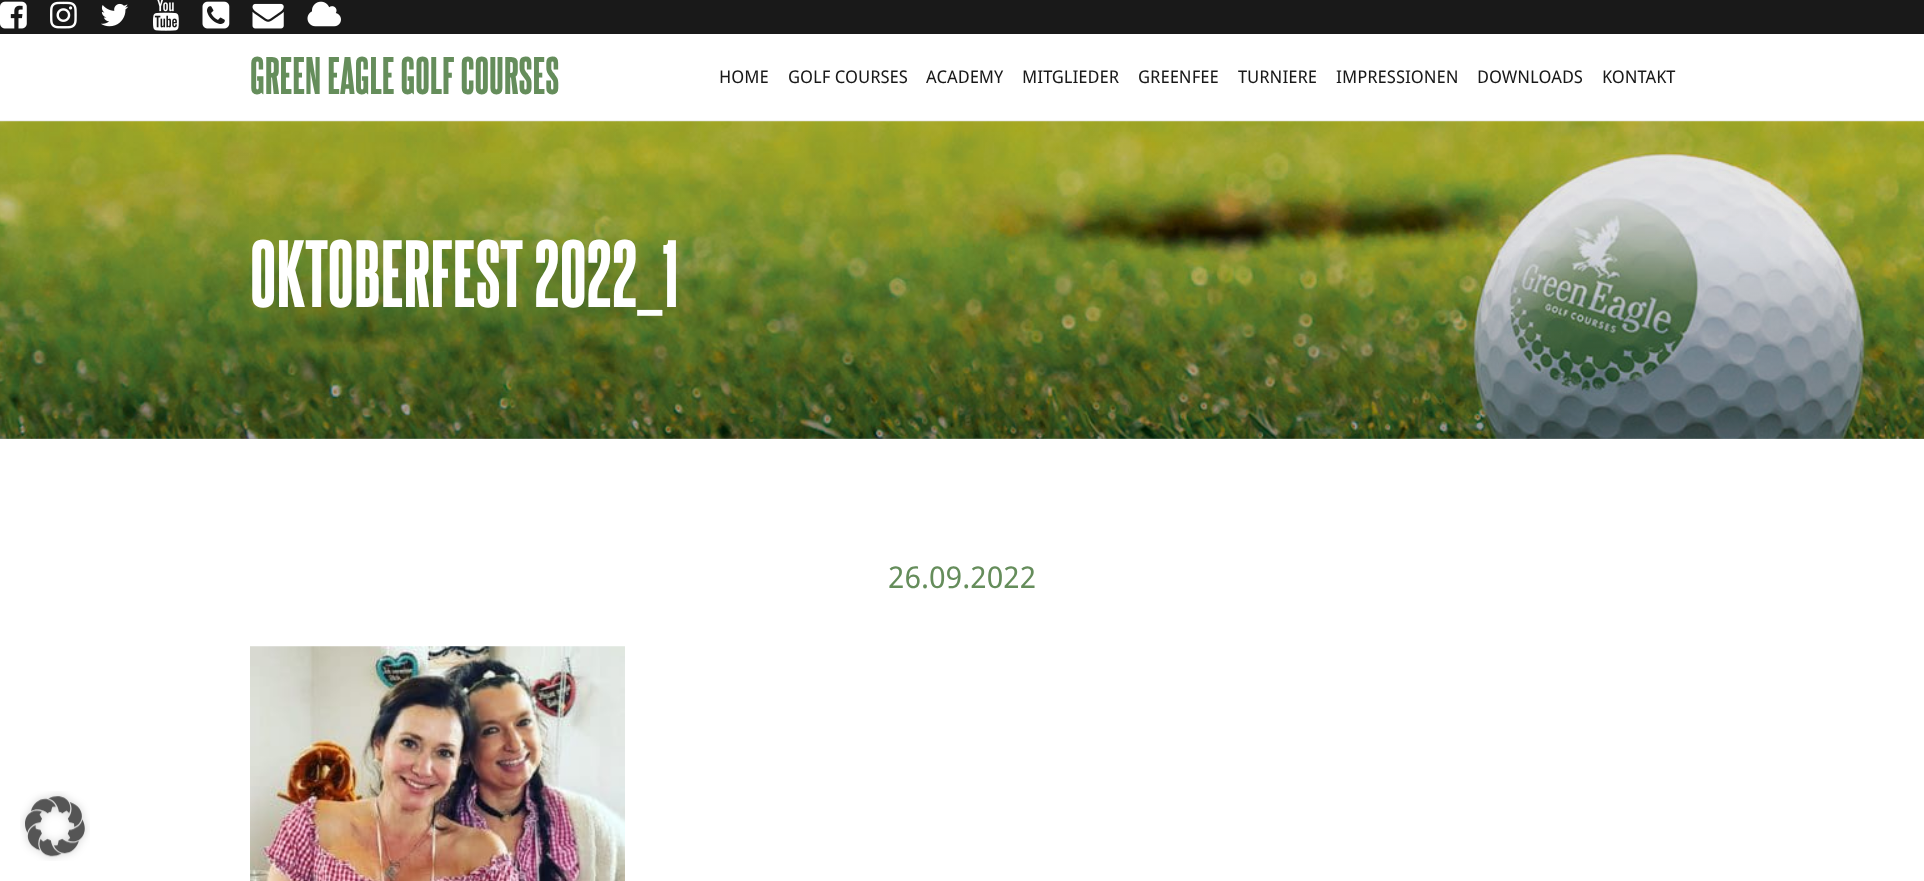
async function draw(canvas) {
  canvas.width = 1924;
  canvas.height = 881;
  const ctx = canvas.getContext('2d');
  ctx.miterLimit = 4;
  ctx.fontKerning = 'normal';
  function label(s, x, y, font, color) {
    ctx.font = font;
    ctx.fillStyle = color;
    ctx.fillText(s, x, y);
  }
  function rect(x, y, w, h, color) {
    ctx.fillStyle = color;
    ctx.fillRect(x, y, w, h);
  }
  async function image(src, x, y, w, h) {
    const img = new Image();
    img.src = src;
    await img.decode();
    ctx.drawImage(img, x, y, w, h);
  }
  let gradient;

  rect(0, 0, 1924, 881, '#fff');
  rect(0, 0, 1924, 34, '#191919');
  await image('assets/img1.png', 0, 1, 27, 28);
  await image('assets/img2.png', 50, 1, 27, 28);
  await image('assets/img3.png', 101, 3, 28, 24);
  await image('assets/img4.png', 153, 0, 26, 31);
  await image('assets/img5.png', 202, 1, 28, 28);
  await image('assets/img6.png', 252, 3, 32, 26);
  await image('assets/img7.png', 307, 1, 34, 26);
  rect(0, 120, 1924, 1, '#f2f2f2');
  label('GREEN EAGLE GOLF COURSES', 250, 94, '800 45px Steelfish', '#658d5b');
  label('HOME', 719, 83, '17.5px Droid Sans', '#191919');
  label('GOLF COURSES', 788, 83, '17.5px Droid Sans', '#191919');
  label('ACADEMY', 926, 83, '17.5px Droid Sans', '#191919');
  label('MITGLIEDER', 1022, 83, '17.5px Droid Sans', '#191919');
  label('GREENFEE', 1138, 83, '17.5px Droid Sans', '#191919');
  label('TURNIERE', 1238, 83, '17.5px Droid Sans', '#191919');
  label('IMPRESSIONEN', 1336, 83, '17.5px Droid Sans', '#191919');
  label('DOWNLOADS', 1477, 83, '17.5px Droid Sans', '#191919');
  label('KONTAKT', 1602, 83, '17.5px Droid Sans', '#191919');
  await image('assets/img8.png', 0, 121, 1924, 318);
  gradient = ctx.createLinearGradient(963, 121, 963, 439);
  gradient.addColorStop(0, '#0000001a');
  gradient.addColorStop(0.4, '#0000001a');
  gradient.addColorStop(1, '#00000066');
  ctx.fillStyle = gradient;
  ctx.fillRect(0, 121, 1924, 318);
  label('OKTOBERFEST 2022_1', 250, 307, '800 81.25px Steelfish', '#fff');
  label('26.09.2022', 888, 588, '30px Droid Sans', '#658d5b');
  await image('assets/img9.png', 250, 646, 375, 235);
  await image('assets/img10.png', 20, 791, 70, 70);
}

draw(document.querySelector('canvas'));
